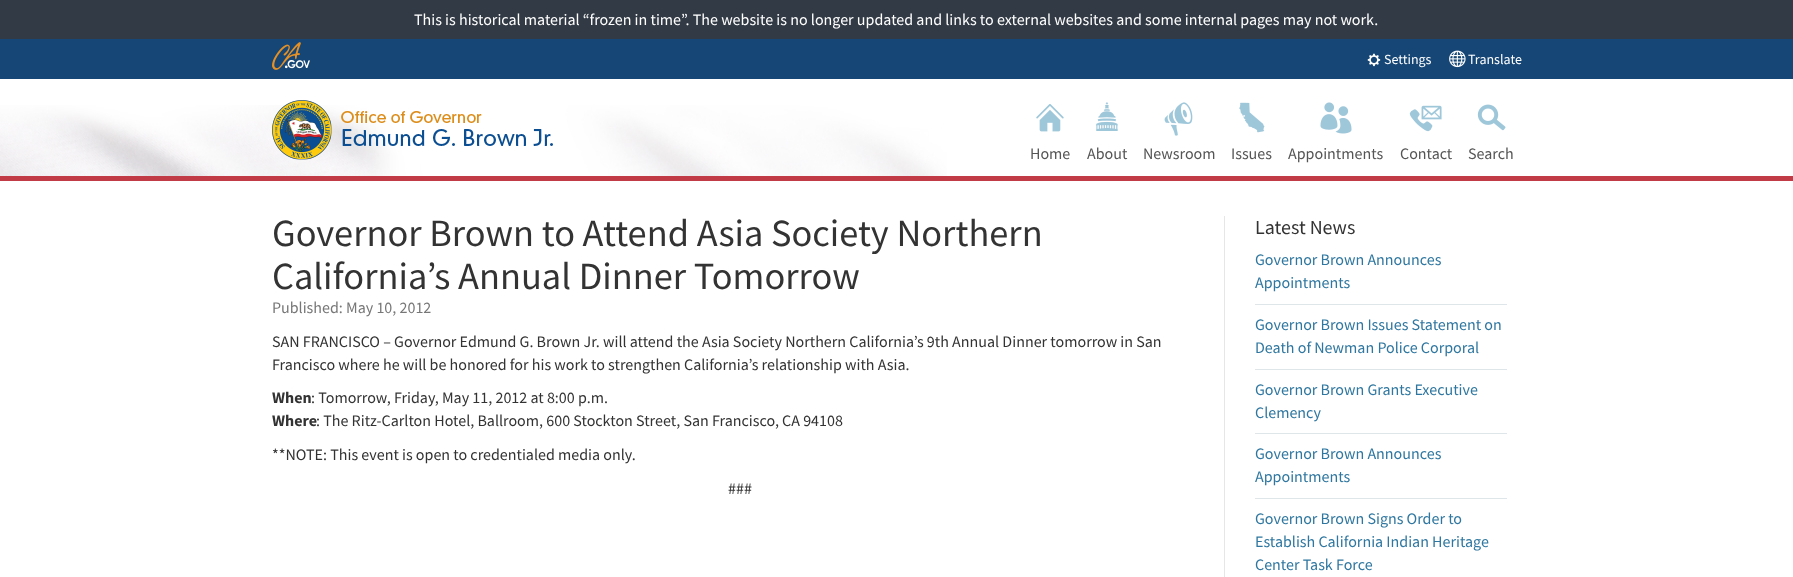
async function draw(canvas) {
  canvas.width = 1793;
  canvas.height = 577;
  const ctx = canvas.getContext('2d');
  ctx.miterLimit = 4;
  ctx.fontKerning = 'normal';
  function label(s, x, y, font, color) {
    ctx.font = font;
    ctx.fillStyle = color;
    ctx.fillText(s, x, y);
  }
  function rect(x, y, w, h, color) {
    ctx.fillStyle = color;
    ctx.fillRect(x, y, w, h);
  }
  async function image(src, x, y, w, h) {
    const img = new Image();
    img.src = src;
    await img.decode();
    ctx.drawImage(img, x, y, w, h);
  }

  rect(0, 0, 1793, 577, '#fff');
  rect(0, 0, 1793, 39, '#323a45');
  label('This is historical material “frozen in time”. The website is no longer updated and links to external websites and some internal pages may not work.', 414, 25, '16px Source Sans Pro', '#fff');
  rect(0, 39, 1793, 40, '#164675');
  await image('assets/img1.png', 272, 42, 38, 28);
  await image('assets/img2.png', 1367, 53, 14, 14);
  label('Settings', 1384, 64, '14px Source Sans Pro', '#fff');
  await image('assets/img3.png', 1449, 50, 17, 18);
  label('Translate', 1468, 64, '14px Source Sans Pro', '#fff');
  await image('assets/img5.png', 0, 105, 947, 71);
  await image('assets/img4.png', 272, 100, 281, 60);
  rect(0, 176, 1793, 5, '#c03b45');
  await image('assets/img6.png', 1036, 104, 28, 28);
  label('Home', 1030, 159, '16px Source Sans Pro', '#555');
  await image('assets/img7.png', 1096, 102, 22, 29);
  label('About', 1087, 159, '16px Source Sans Pro', '#555');
  await image('assets/img8.png', 1164, 102, 29, 34);
  label('Newsroom', 1143, 159, '16px Source Sans Pro', '#555');
  await image('assets/img9.png', 1239, 102, 26, 31);
  label('Issues', 1231, 159, '16px Source Sans Pro', '#555');
  await image('assets/img10.png', 1320, 102, 32, 32);
  label('Appointments', 1288, 159, '16px Source Sans Pro', '#555');
  await image('assets/img11.png', 1409, 105, 33, 27);
  label('Contact', 1400, 159, '16px Source Sans Pro', '#555');
  await image('assets/img12.png', 1477, 104, 29, 27);
  label('Search', 1468, 159, '16px Source Sans Pro', '#555');
  label('Governor Brown to Attend Asia Society Northern', 272, 246, '38.4px Source Sans Pro', '#333');
  label('California’s Annual Dinner Tomorrow', 272, 289, '38.4px Source Sans Pro', '#333');
  label('Published: May 10, 2012', 272, 313, '16px Source Sans Pro', '#777');
  label('SAN FRANCISCO – Governor Edmund G. Brown Jr. will attend the Asia Society Northern California’s 9th Annual Dinner tomorrow in San', 272, 347, '16px Source Sans Pro', '#333');
  label('Francisco where he will be honored for his work to strengthen California’s relationship with Asia.', 272, 370, '16px Source Sans Pro', '#333');
  label('When', 272, 403, 'bold 16px Source Sans Pro', '#333');
  label(': Tomorrow, Friday, May 11, 2012 at 8:00 p.m.', 311, 403, '16px Source Sans Pro', '#333');
  label('Where', 272, 426, 'bold 16px Source Sans Pro', '#333');
  label(': The Ritz-Carlton Hotel, Ballroom, 600 Stockton Street, San Francisco, CA 94108', 316, 426, '16px Source Sans Pro', '#333');
  label('**NOTE: This event is open to credentialed media only.', 272, 460, '16px Source Sans Pro', '#333');
  label('###', 728, 494, '16px Source Sans Pro', '#333');
  rect(1224, 216, 1, 361, '#e6e6e6');
  label('Latest News', 1255, 234, '20px Source Sans Pro', '#333');
  rect(1255, 304, 252, 1, '#dee6ea');
  label('Governor Brown Announces', 1255, 265, '16px Source Sans Pro', '#2f77a0');
  label('Appointments', 1255, 288, '16px Source Sans Pro', '#2f77a0');
  rect(1255, 369, 252, 1, '#dee6ea');
  label('Governor Brown Issues Statement on', 1255, 330, '16px Source Sans Pro', '#2f77a0');
  label('Death of Newman Police Corporal', 1255, 353, '16px Source Sans Pro', '#2f77a0');
  rect(1255, 433, 252, 1, '#dee6ea');
  label('Governor Brown Grants Executive', 1255, 395, '16px Source Sans Pro', '#2f77a0');
  label('Clemency', 1255, 418, '16px Source Sans Pro', '#2f77a0');
  rect(1255, 498, 252, 1, '#dee6ea');
  label('Governor Brown Announces', 1255, 459, '16px Source Sans Pro', '#2f77a0');
  label('Appointments', 1255, 482, '16px Source Sans Pro', '#2f77a0');
  label('Governor Brown Signs Order to', 1255, 524, '16px Source Sans Pro', '#2f77a0');
  label('Establish California Indian Heritage', 1255, 547, '16px Source Sans Pro', '#2f77a0');
  label('Center Task Force', 1255, 570, '16px Source Sans Pro', '#2f77a0');
}

draw(document.querySelector('canvas'));
